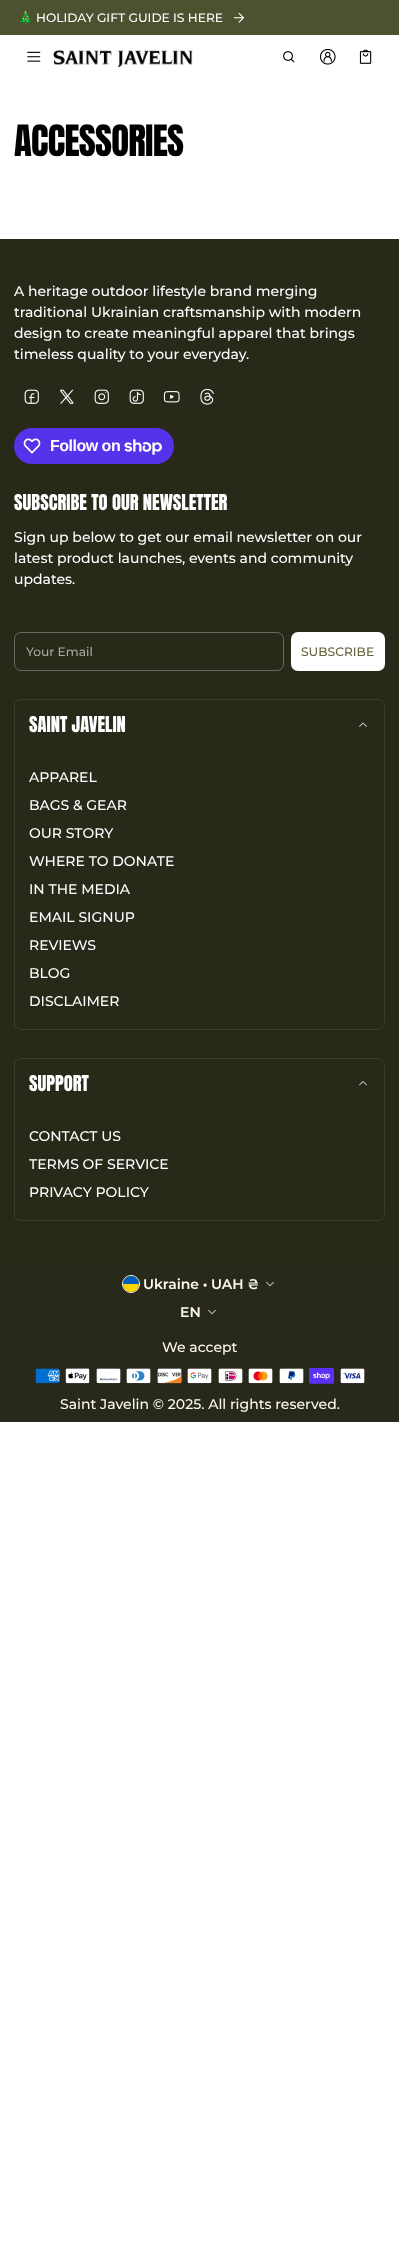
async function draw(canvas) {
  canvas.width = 399;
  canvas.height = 2255;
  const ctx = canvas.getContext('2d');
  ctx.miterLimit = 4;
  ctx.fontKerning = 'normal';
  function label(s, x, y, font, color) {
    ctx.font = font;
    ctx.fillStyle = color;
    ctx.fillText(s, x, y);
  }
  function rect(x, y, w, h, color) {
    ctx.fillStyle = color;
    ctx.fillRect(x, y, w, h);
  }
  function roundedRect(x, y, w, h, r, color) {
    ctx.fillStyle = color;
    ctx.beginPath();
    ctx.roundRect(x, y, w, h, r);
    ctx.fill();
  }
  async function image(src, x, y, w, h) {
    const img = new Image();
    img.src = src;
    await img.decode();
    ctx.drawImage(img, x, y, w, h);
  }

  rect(0, 0, 399, 2255, '#fff');
  rect(0, 0, 399, 35, '#4e5130');
  label('🎄', 18, 22, '12.25px Noto Color Emoji', '#fff');
  label('HOLIDAY GIFT GUIDE IS HERE', 36, 22, '500 12.25px Montserrat', '#fff');
  await image('assets/img1.png', 233, 12, 11, 11);
  await image('assets/img2.png', 27, 51, 14, 11);
  await image('assets/img3.png', 53, 50, 140, 17);
  await image('assets/img4.png', 283, 51, 12, 12);
  await image('assets/img5.png', 319, 48, 17, 17);
  await image('assets/img6.png', 359, 49, 13, 15);
  ctx.letterSpacing = '-0.75px';
  label('ACCESSORIES', 14, 156, '36.75px Anton', '#000');
  rect(0, 239, 399, 1024, '#282919');
  ctx.letterSpacing = '0px';
  label('A heritage outdoor lifestyle brand merging', 14, 296, '500 14px Montserrat', '#fff');
  label('traditional Ukrainian craftsmanship with modern', 14, 317, '500 14px Montserrat', '#fff');
  label('design to create meaningful apparel that brings', 14, 338, '500 14px Montserrat', '#fff');
  label('timeless quality to your everyday.', 14, 359, '500 14px Montserrat', '#fff');
  await image('assets/img7.png', 24, 389, 15, 15);
  await image('assets/img8.png', 60, 389, 14, 15);
  await image('assets/img9.png', 94, 389, 15, 15);
  await image('assets/img10.png', 129, 389, 15, 15);
  await image('assets/img11.png', 163, 391, 17, 12);
  await image('assets/img12.png', 200, 388, 14, 17);
  roundedRect(14, 428, 160, 36, 18, '#5433eb');
  await image('assets/img13.png', 23, 438, 18, 16);
  ctx.letterSpacing = '-0.5px';
  label('Follow on', 50, 451, 'bold 16px Liberation Sans', '#fff');
  await image('assets/img14.png', 124, 439, 38, 16);
  ctx.letterSpacing = '0px';
  label('SUBSCRIBE TO OUR NEWSLETTER', 14, 510, '18.5px Anton', '#fff');
  label('Sign up below to get our email newsletter on our', 14, 542, '500 14px Montserrat', '#fff');
  label('latest product launches, events and community', 14, 563, '500 14px Montserrat', '#fff');
  label('updates.', 14, 584, '500 14px Montserrat', '#fff');
  ctx.beginPath();
  ctx.roundRect(14.5, 632.5, 269, 38, 6.5);
  ctx.strokeStyle = '#69695e';
  ctx.stroke();
  label('Your Email', 26, 656, '500 12.25px Montserrat', '#a9a9a3');
  roundedRect(291, 632, 94, 39, 7, '#fff');
  label('SUBSCRIBE', 301, 656, '500 12.25px Montserrat', '#65613b');
  ctx.beginPath();
  ctx.roundRect(14.5, 699.5, 370, 330, 6.5);
  ctx.strokeStyle = '#3e3e30';
  ctx.stroke();
  label('SAINT JAVELIN', 29, 732, '18.5px Anton', '#fff');
  await image('assets/img15.png', 359, 722, 8, 5);
  label('APPAREL', 29, 782, '500 14px Montserrat', '#fff');
  label('BAGS & GEAR', 29, 810, '500 14px Montserrat', '#fff');
  label('OUR STORY', 29, 838, '500 14px Montserrat', '#fff');
  label('WHERE TO DONATE', 29, 866, '500 14px Montserrat', '#fff');
  label('IN THE MEDIA', 29, 894, '500 14px Montserrat', '#fff');
  label('EMAIL SIGNUP', 29, 922, '500 14px Montserrat', '#fff');
  label('REVIEWS', 29, 950, '500 14px Montserrat', '#fff');
  label('BLOG', 29, 978, '500 14px Montserrat', '#fff');
  label('DISCLAIMER', 29, 1006, '500 14px Montserrat', '#fff');
  ctx.beginPath();
  ctx.roundRect(14.5, 1058.5, 370, 162, 6.5);
  ctx.stroke();
  label('SUPPORT', 29, 1091, '18.5px Anton', '#fff');
  await image('assets/img16.png', 359, 1081, 8, 5);
  label('CONTACT US', 29, 1141, '500 14px Montserrat', '#fff');
  label('TERMS OF SERVICE', 29, 1169, '500 14px Montserrat', '#fff');
  label('PRIVACY POLICY', 29, 1197, '500 14px Montserrat', '#fff');
  rect(0, 1263, 399, 159, '#28291b');
  ctx.beginPath();
  ctx.arc(131, 1284, 8.5, 0, 2 * Math.PI);
  ctx.strokeStyle = '#fff';
  ctx.stroke();
  ctx.fillStyle = '#ffd500';
  ctx.beginPath();
  ctx.arc(131, 1284, 8, 0, 2 * Math.PI);
  ctx.fill();
  ctx.fillStyle = '#005bbb';
  ctx.beginPath();
  ctx.roundRect(123, 1276, 16, 8, [8, 8, 0, 0]);
  ctx.fill();
  label('Ukraine •', 143, 1289, '600 14px Montserrat', '#fdfbf2');
  label('UAH ₴', 211, 1289, '600 14px Montserrat', '#fdfbf2');
  await image('assets/img17.png', 266, 1281, 8, 6);
  label('EN', 180, 1317, '600 14px Montserrat', '#fdfbf2');
  await image('assets/img17.png', 208, 1309, 8, 6);
  label('We accept', 162, 1352, '500 14px Montserrat', '#fdfbf2');
  await image('assets/img18.png', 35, 1368, 25, 16);
  await image('assets/img19.png', 65, 1368, 25, 16);
  await image('assets/img20.png', 96, 1368, 25, 16);
  await image('assets/img21.png', 126, 1368, 25, 16);
  await image('assets/img22.png', 157, 1368, 25, 16);
  await image('assets/img23.png', 187, 1368, 25, 16);
  await image('assets/img24.png', 218, 1368, 25, 16);
  await image('assets/img25.png', 248, 1368, 25, 16);
  await image('assets/img26.png', 279, 1368, 25, 16);
  await image('assets/img27.png', 309, 1368, 25, 16);
  await image('assets/img28.png', 340, 1368, 25, 16);
  label('Saint Javelin © 2025. All rights reserved.', 60, 1409, '500 14px Montserrat', '#fdfbf2');
}

draw(document.querySelector('canvas'));
